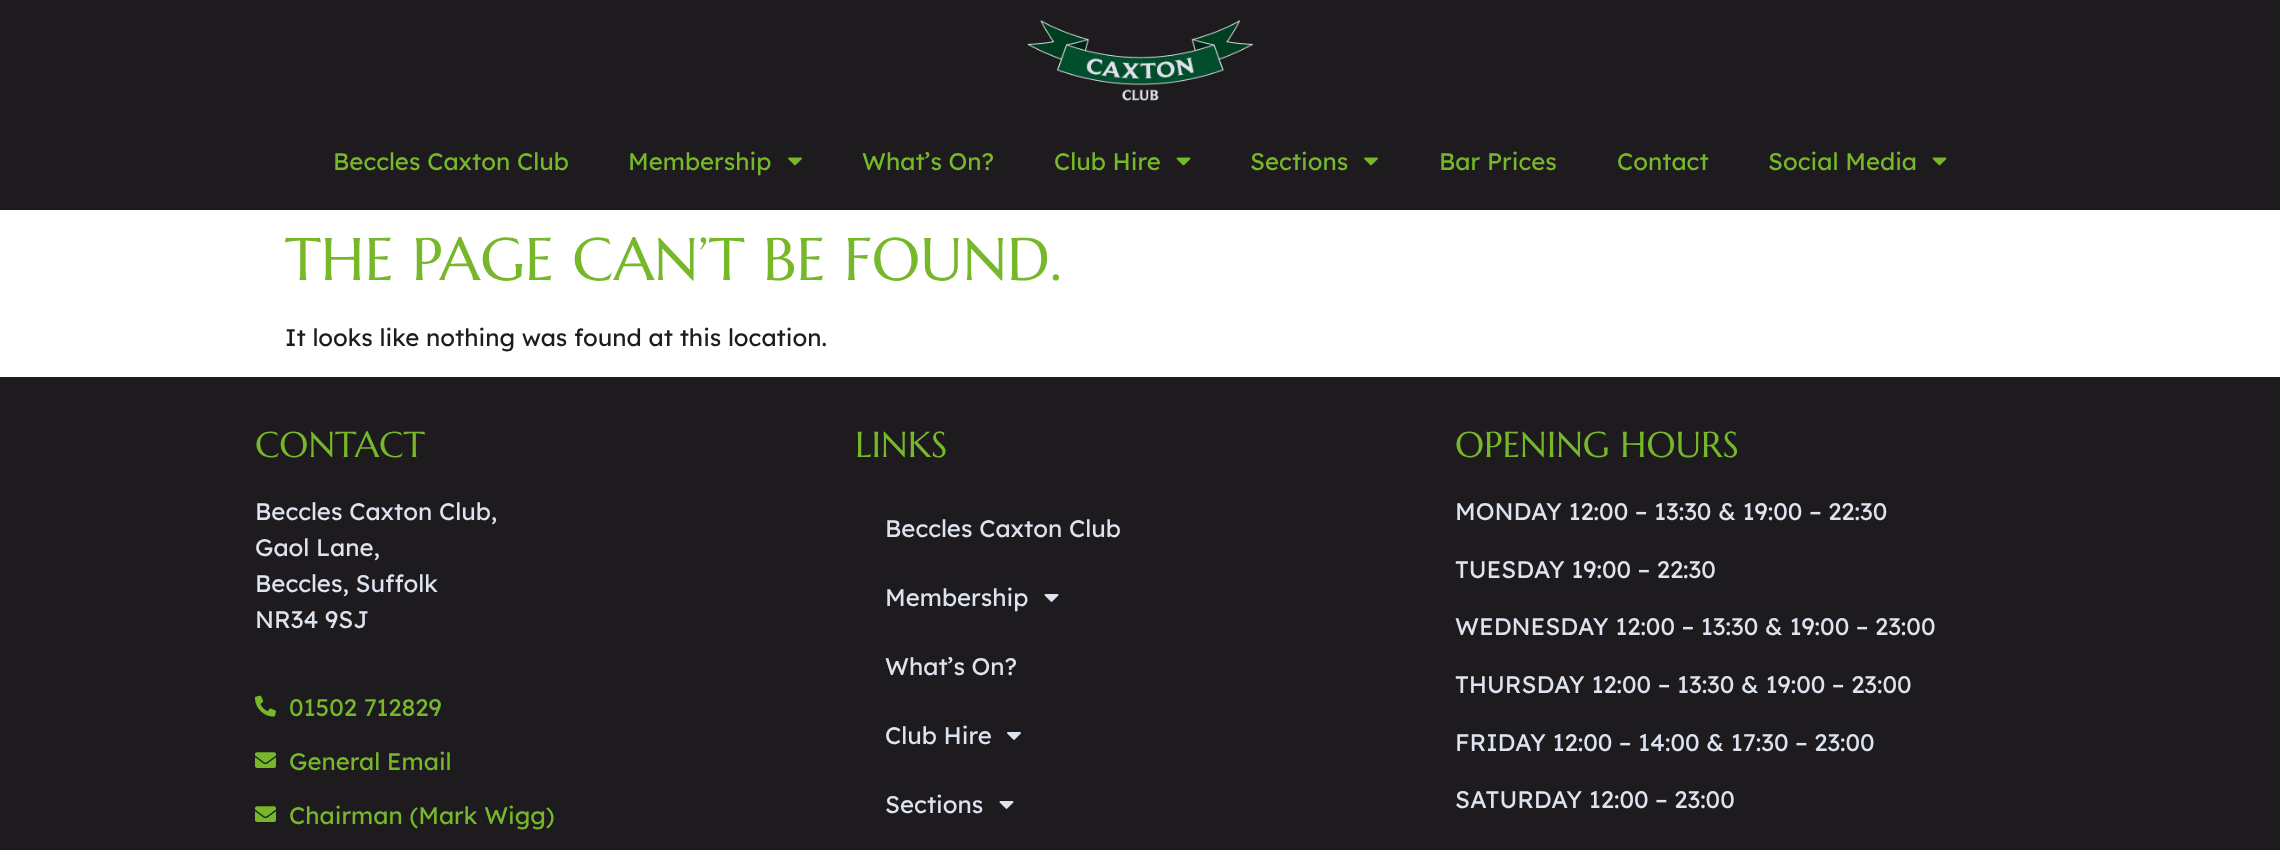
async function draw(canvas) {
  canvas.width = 2280;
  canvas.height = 850;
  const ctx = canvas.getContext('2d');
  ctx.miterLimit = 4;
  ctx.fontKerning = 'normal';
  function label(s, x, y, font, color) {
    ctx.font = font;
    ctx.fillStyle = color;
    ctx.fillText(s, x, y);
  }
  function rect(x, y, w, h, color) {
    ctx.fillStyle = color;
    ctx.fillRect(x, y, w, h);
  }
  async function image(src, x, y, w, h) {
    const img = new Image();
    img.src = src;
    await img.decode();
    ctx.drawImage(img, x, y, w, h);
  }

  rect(0, 0, 2280, 850, '#fff');
  rect(0, 0, 2280, 210, '#1d1b1e');
  await image('assets/img1.png', 1027, 19, 226, 82);
  label('Beccles Caxton Club', 333, 170, '24px Lexend Deca', '#77b72a');
  label('Membership', 628, 170, '24px Lexend Deca', '#77b72a');
  await image('assets/img2.png', 788, 157, 14, 9);
  label('What’s On?', 862, 170, '24px Lexend Deca', '#77b72a');
  label('Club Hire', 1054, 170, '24px Lexend Deca', '#77b72a');
  await image('assets/img3.png', 1176, 157, 15, 9);
  label('Sections', 1250, 170, '24px Lexend Deca', '#77b72a');
  await image('assets/img2.png', 1364, 157, 14, 9);
  label('Bar Prices', 1439, 170, '24px Lexend Deca', '#77b72a');
  label('Contact', 1617, 170, '24px Lexend Deca', '#77b72a');
  label('Social Media', 1768, 170, '24px Lexend Deca', '#77b72a');
  await image('assets/img3.png', 1932, 157, 15, 9);
  label('THE PAGE CAN’T BE FOUND.', 285, 280, '60px Marcellus', '#77b72a');
  label('It looks like nothing was found at this location.', 285, 346, '24px Lexend Deca', '#1d1b1e');
  rect(0, 377, 2280, 473, '#1d1b1e');
  label('CONTACT', 255, 457, '36px Marcellus', '#77b72a');
  label('Beccles Caxton Club,', 255, 520, '24px Lexend Deca', '#dee4ef');
  label('Gaol Lane,', 255, 556, '24px Lexend Deca', '#dee4ef');
  label('Beccles, Suffolk', 255, 592, '24px Lexend Deca', '#dee4ef');
  label('NR34 9SJ', 255, 628, '24px Lexend Deca', '#dee4ef');
  await image('assets/img4.png', 255, 695, 21, 22);
  label('01502 712829', 289, 716, '24px Lexend Deca', '#77b72a');
  await image('assets/img5.png', 255, 752, 21, 16);
  label('General Email', 289, 770, '24px Lexend Deca', '#77b72a');
  await image('assets/img5.png', 255, 806, 21, 16);
  label('Chairman (Mark Wigg)', 289, 824, '24px Lexend Deca', '#77b72a');
  label('LINKS', 855, 457, '36px Marcellus', '#77b72a');
  label('Beccles Caxton Club', 885, 537, '24px Lexend Deca', '#dee4ef');
  label('Membership', 885, 606, '24px Lexend Deca', '#dee4ef');
  await image('assets/img6.png', 1044, 594, 15, 8);
  label('What’s On?', 885, 675, '24px Lexend Deca', '#dee4ef');
  label('Club Hire', 885, 744, '24px Lexend Deca', '#dee4ef');
  await image('assets/img7.png', 1007, 732, 14, 8);
  label('Sections', 885, 813, '24px Lexend Deca', '#dee4ef');
  await image('assets/img6.png', 999, 801, 15, 8);
  label('OPENING HOURS', 1455, 457, '36px Marcellus', '#77b72a');
  label('MONDAY 12:00 – 13:30 & 19:00 – 22:30', 1455, 520, '24px Lexend Deca', '#dee4ef');
  label('TUESDAY 19:00 – 22:30', 1455, 578, '24px Lexend Deca', '#dee4ef');
  label('WEDNESDAY 12:00 – 13:30 & 19:00 – 23:00', 1455, 635, '24px Lexend Deca', '#dee4ef');
  label('THURSDAY 12:00 – 13:30 & 19:00 – 23:00', 1455, 693, '24px Lexend Deca', '#dee4ef');
  label('FRIDAY 12:00 – 14:00 & 17:30 – 23:00', 1455, 751, '24px Lexend Deca', '#dee4ef');
  label('SATURDAY 12:00 – 23:00', 1455, 808, '24px Lexend Deca', '#dee4ef');
}

draw(document.querySelector('canvas'));
